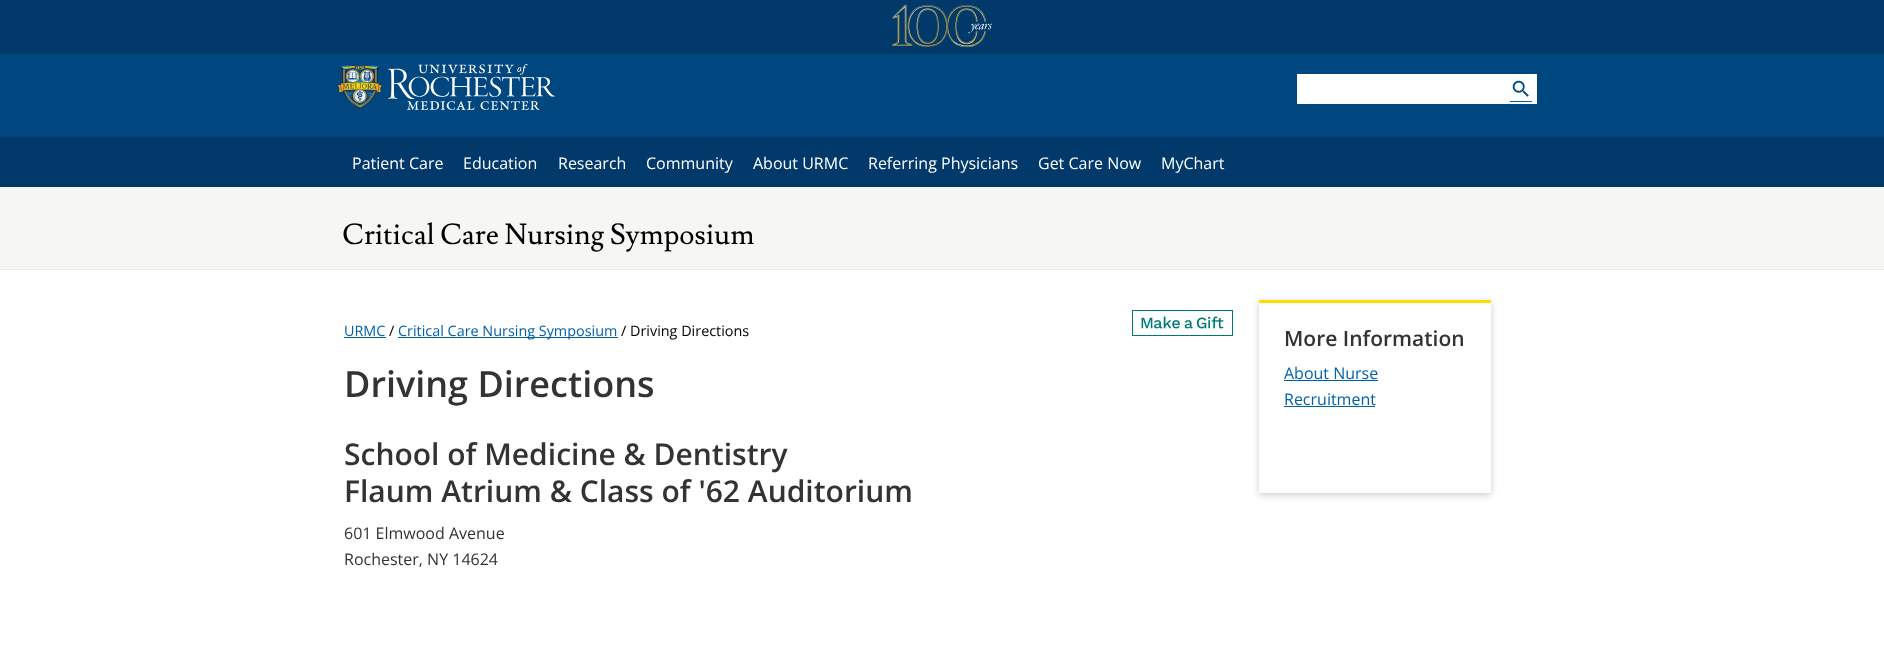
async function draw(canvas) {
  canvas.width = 1884;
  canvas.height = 646;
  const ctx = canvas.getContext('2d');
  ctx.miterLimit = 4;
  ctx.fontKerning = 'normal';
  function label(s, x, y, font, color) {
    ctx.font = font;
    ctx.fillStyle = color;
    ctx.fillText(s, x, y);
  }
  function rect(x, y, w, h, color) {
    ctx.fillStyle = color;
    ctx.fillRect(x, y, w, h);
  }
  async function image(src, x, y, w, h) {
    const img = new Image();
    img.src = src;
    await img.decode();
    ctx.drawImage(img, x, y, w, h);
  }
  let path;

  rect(0, 0, 1884, 646, '#00467f');
  rect(0, 0, 1884, 54, '#02396b');
  await image('assets/img1.png', 892, 5, 100, 42);
  await image('assets/img2.png', 337, 64, 218, 46);
  rect(1297, 74, 240, 30, '#fff');
  await image('assets/img3.png', 1512, 80, 17, 17);
  rect(1510, 101, 22, 1, '#0061ab');
  rect(0, 137, 1884, 50, '#02396b');
  label('Patient Care', 352, 169, '16px Open Sans', '#fff');
  label('Education', 463, 169, '16px Open Sans', '#fff');
  label('Research', 558, 169, '16px Open Sans', '#fff');
  label('Community', 646, 169, '16px Open Sans', '#fff');
  label('About URMC', 753, 169, '16px Open Sans', '#fff');
  label('Referring Physicians', 868, 169, '16px Open Sans', '#fff');
  label('Get Care Now', 1038, 169, '16px Open Sans', '#fff');
  label('MyChart', 1161, 169, '16px Open Sans', '#fff');
  rect(0, 270, 1884, 376, '#fff');
  rect(0, 187, 1884, 82, '#f6f6f4');
  label('Critical Care Nursing Symposium', 342, 244, '28.75px Lusitana', '#000');
  rect(0, 269, 1884, 1, '#ececec');
  label('URMC', 344, 336, '14.4px Open Sans', '#0061ab');
  rect(344, 337, 42, 1, '#0061ab');
  label('/', 389, 336, '14.4px Open Sans', '#000');
  rect(398, 337, 220, 1, '#0061ab');
  label('Critical Care Nursing Symposium', 398, 336, '14.4px Open Sans', '#0061ab');
  label('/ Driving Directions', 621, 336, '14.4px Open Sans', '#000');
  await image('assets/img4.png', 1132, 310, 101, 26);
  label('Driving Directions', 344, 397, '600 36px Open Sans', '#333');
  label('School of Medicine & Dentistry', 344, 465, '600 30px Open Sans', '#333');
  label('Flaum Atrium & Class of \'62 Auditorium', 344, 502, '600 30px Open Sans', '#333');
  label('601 Elmwood Avenue', 344, 539, '16px Open Sans', '#333');
  label('Rochester, NY 14624', 344, 565, '16px Open Sans', '#333');
  ctx.save();
  path = new Path2D('M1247 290H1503V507H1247ZM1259 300H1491V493H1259Z');
  ctx.clip(path, 'evenodd');
  ctx.fillStyle = '#00000033';
  ctx.filter = 'blur(3.5px)';
  ctx.beginPath();
  ctx.rect(1259, 302, 232, 193);
  ctx.fill();
  ctx.filter = 'none';
  ctx.restore();
  rect(1259, 300, 232, 3, '#fd0');
  label('More Information', 1284, 346, '600 21px Open Sans', '#333');
  label('About Nurse', 1284, 379, '16px Open Sans', '#0061ab');
  rect(1284, 380, 94, 1, '#0061ab');
  label('Recruitment', 1284, 405, '16px Open Sans', '#0061ab');
  rect(1284, 406, 91, 1, '#0061ab');
}

draw(document.querySelector('canvas'));
